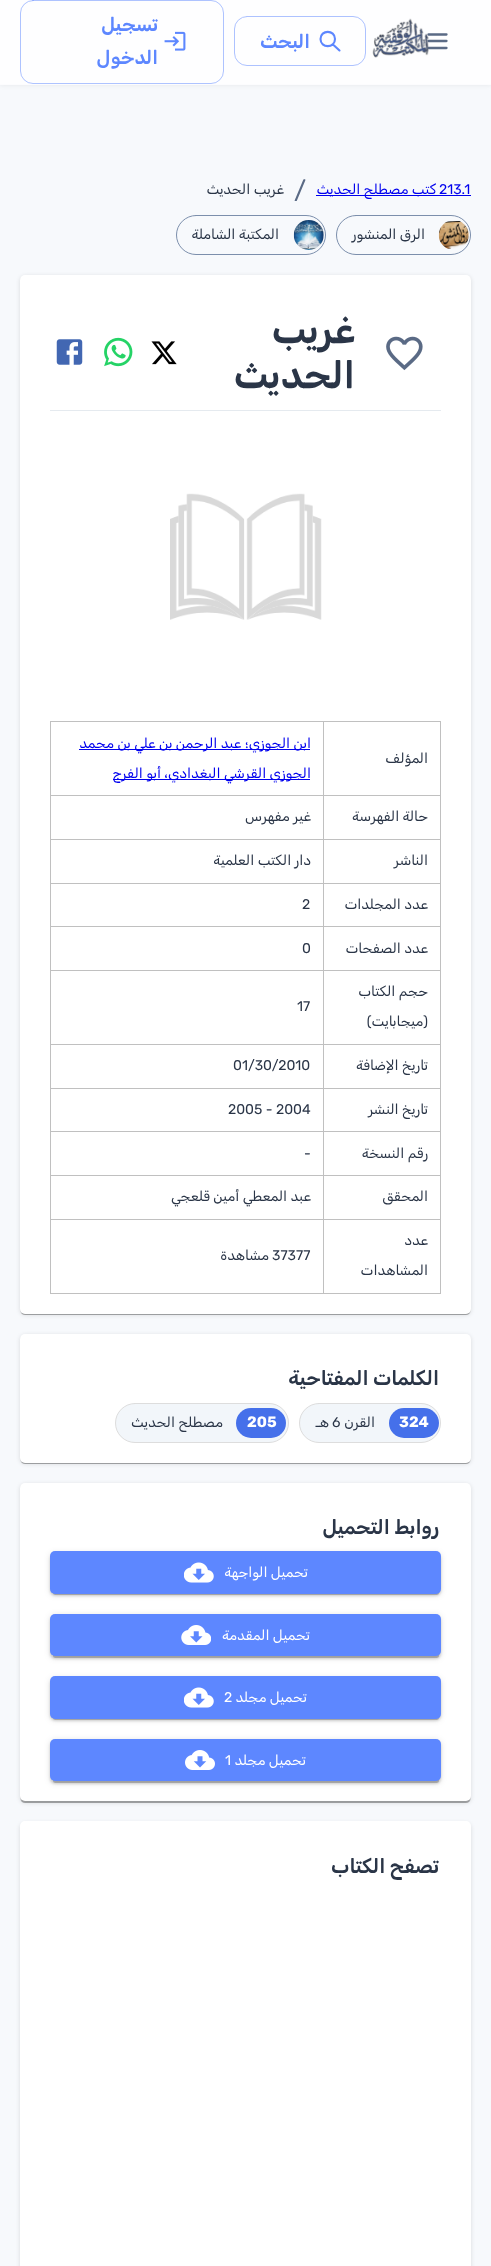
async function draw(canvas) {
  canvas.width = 491;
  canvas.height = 2266;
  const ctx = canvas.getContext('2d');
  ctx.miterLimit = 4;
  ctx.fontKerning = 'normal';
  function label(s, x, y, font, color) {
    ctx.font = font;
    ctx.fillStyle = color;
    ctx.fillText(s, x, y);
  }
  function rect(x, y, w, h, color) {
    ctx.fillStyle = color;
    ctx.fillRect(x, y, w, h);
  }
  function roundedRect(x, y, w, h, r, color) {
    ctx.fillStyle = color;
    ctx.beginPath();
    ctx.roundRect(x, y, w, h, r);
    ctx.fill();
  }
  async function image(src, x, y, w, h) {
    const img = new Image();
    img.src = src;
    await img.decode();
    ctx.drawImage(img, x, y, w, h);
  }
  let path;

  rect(0, 0, 491, 2266, '#f7f9fc');
  ctx.fillStyle = '#0000000d';
  ctx.filter = 'blur(2px)';
  ctx.beginPath();
  ctx.rect(0, 1, 491, 85);
  ctx.fill();
  ctx.filter = 'none';
  rect(0, 0, 491, 84, '#fefeff');
  rect(0, 84, 491, 1, '#fcfcfe');
  await image('assets/img1.png', 372, 18, 57, 40);
  path = new Path2D('M428.5 34.5H446.5M428.5 41H446.5M428.5 48H446.5');
  ctx.strokeStyle = '#5a6a85';
  ctx.lineWidth = 2.3;
  ctx.lineCap = 'round';
  ctx.lineJoin = 'round';
  ctx.stroke(path);
  ctx.beginPath();
  ctx.roundRect(234.5, 16.5, 131, 49, 12.5);
  ctx.strokeStyle = '#adc2ff';
  ctx.lineWidth = 1;
  ctx.lineJoin = 'miter';
  ctx.stroke();
  path = new Path2D('M320.5 39C320.5 48.5 335 48.5 335 39C335 29.5 320.5 29.5 320.5 39M339.5 50.5L333 44.5');
  ctx.strokeStyle = '#5d87ff';
  ctx.lineWidth = 2.1;
  ctx.lineJoin = 'round';
  ctx.stroke(path);
  ctx.direction = 'rtl';
  label('البحث', 310, 48, '600 19px Rubik', '#5d87ff');
  ctx.beginPath();
  ctx.roundRect(20.5, 0.5, 203, 83, 12.5);
  ctx.strokeStyle = '#5d87ff80';
  ctx.lineWidth = 1;
  ctx.lineJoin = 'miter';
  ctx.stroke();
  label('تسجيل', 158, 31, '600 19px Rubik', '#5d87ff');
  await image('assets/img2.png', 164, 31, 22, 20);
  label('الدخول', 158, 64, '600 19px Rubik', '#5d87ff');
  ctx.direction = 'ltr';
  label('213.1', 439, 194, '14px Rubik', '#00e');
  rect(316, 195, 155, 1, '#00e');
  ctx.direction = 'rtl';
  label('كتب مصطلح الحديث', 436, 194, '14px Rubik', '#00e');
  ctx.direction = 'ltr';
  label('/', 294, 199, '25px Rubik', '#5a6a85');
  ctx.direction = 'rtl';
  label('غريب الحديث', 284, 194, '14px Rubik', '#2a3547');
  ctx.beginPath();
  ctx.roundRect(336.5, 215.5, 134, 39, 19.5);
  ctx.strokeStyle = '#7c8fac';
  ctx.stroke();
  await image('assets/img3.png', 438, 221, 31, 28);
  label('الرق المنشور', 425, 239, '14px Rubik', '#2a3547');
  ctx.beginPath();
  ctx.roundRect(176.5, 215.5, 149, 39, 19.5);
  ctx.stroke();
  await image('assets/img4.png', 293, 220, 31, 30);
  label('المكتبة الشاملة', 279, 239, '14px Rubik', '#2a3547');
  ctx.fillStyle = '#0000001f';
  ctx.filter = 'blur(2px)';
  ctx.beginPath();
  ctx.roundRect(20, 276, 451, 1039, 5);
  ctx.fill();
  ctx.filter = 'none';
  ctx.fillStyle = '#00000024';
  ctx.filter = 'blur(0.5px)';
  ctx.beginPath();
  ctx.roundRect(20, 276, 451, 1039, 5);
  ctx.fill();
  ctx.filter = 'none';
  ctx.fillStyle = '#00000033';
  ctx.filter = 'blur(0.5px)';
  ctx.beginPath();
  ctx.roundRect(21, 279, 449, 1036, 4);
  ctx.fill();
  ctx.filter = 'none';
  roundedRect(20, 275, 451, 1039, 5, '#fff');
  await image('assets/img5.png', 386, 336, 37, 35);
  label('غريب', 355, 343, '600 37.5px Rubik', '#2a3547');
  label('الحديث', 355, 388, '600 37.5px Rubik', '#2a3547');
  await image('assets/img6.png', 151, 341, 26, 24);
  await image('assets/img7.png', 104, 337, 29, 30);
  await image('assets/img8.png', 56, 339, 27, 26);
  rect(50, 410, 391, 1, '#e5eaef');
  await image('assets/img9.png', 170, 493, 152, 127);
  rect(50, 721, 274, 1, '#c0c0c0');
  rect(50, 795, 274, 1, '#c0c0c0');
  rect(50, 839, 274, 1, '#c0c0c0');
  rect(50, 883, 274, 1, '#c0c0c0');
  rect(50, 926, 274, 1, '#c0c0c0');
  rect(50, 970, 274, 1, '#c0c0c0');
  rect(50, 1044, 274, 1, '#c0c0c0');
  rect(50, 1088, 274, 1, '#c0c0c0');
  rect(50, 1131, 274, 1, '#c0c0c0');
  rect(50, 1175, 274, 1, '#c0c0c0');
  rect(50, 1219, 274, 1, '#c0c0c0');
  rect(323, 1219, 1, 75, '#c0c0c0');
  rect(323, 1219, 118, 1, '#c0c0c0');
  rect(323, 1175, 1, 45, '#c0c0c0');
  rect(323, 1175, 118, 1, '#c0c0c0');
  rect(323, 1131, 1, 45, '#c0c0c0');
  rect(323, 1131, 118, 1, '#c0c0c0');
  rect(323, 1088, 1, 45, '#c0c0c0');
  rect(323, 1088, 118, 1, '#c0c0c0');
  rect(323, 1044, 1, 45, '#c0c0c0');
  rect(323, 1044, 118, 1, '#c0c0c0');
  rect(323, 970, 1, 75, '#c0c0c0');
  rect(323, 970, 118, 1, '#c0c0c0');
  rect(323, 926, 1, 45, '#c0c0c0');
  rect(323, 926, 118, 1, '#c0c0c0');
  rect(323, 883, 1, 45, '#c0c0c0');
  rect(323, 883, 118, 1, '#c0c0c0');
  rect(323, 839, 1, 45, '#c0c0c0');
  rect(323, 839, 118, 1, '#c0c0c0');
  rect(323, 795, 1, 45, '#c0c0c0');
  rect(323, 795, 118, 1, '#c0c0c0');
  rect(323, 721, 1, 75, '#c0c0c0');
  rect(323, 721, 118, 1, '#c0c0c0');
  rect(440, 1219, 1, 75, '#c0c0c0');
  rect(440, 1175, 1, 45, '#c0c0c0');
  rect(440, 1131, 1, 45, '#c0c0c0');
  rect(440, 1088, 1, 45, '#c0c0c0');
  rect(440, 1044, 1, 45, '#c0c0c0');
  rect(440, 970, 1, 75, '#c0c0c0');
  rect(440, 926, 1, 45, '#c0c0c0');
  rect(440, 883, 1, 45, '#c0c0c0');
  rect(440, 839, 1, 45, '#c0c0c0');
  rect(440, 795, 1, 45, '#c0c0c0');
  rect(440, 721, 1, 75, '#c0c0c0');
  label('المؤلف', 428, 763, '14px Rubik', '#2a3547');
  rect(50, 1293, 274, 1, '#c0c0c0');
  rect(50, 1219, 1, 75, '#c0c0c0');
  rect(50, 1175, 1, 45, '#c0c0c0');
  rect(50, 1131, 1, 45, '#c0c0c0');
  rect(50, 1088, 1, 45, '#c0c0c0');
  rect(50, 1044, 1, 45, '#c0c0c0');
  rect(50, 970, 1, 75, '#c0c0c0');
  rect(50, 926, 1, 45, '#c0c0c0');
  rect(50, 883, 1, 45, '#c0c0c0');
  rect(50, 839, 1, 45, '#c0c0c0');
  rect(50, 795, 1, 45, '#c0c0c0');
  rect(50, 721, 1, 75, '#c0c0c0');
  rect(79, 749, 231, 1, '#00e');
  label('ابن الجوزي؛ عبد الرحمن بن علي بن محمد', 311, 748, '14px Rubik', '#00e');
  rect(113, 779, 197, 1, '#00e');
  label('الجوزي القرشي البغدادي، أبو الفرج', 311, 778, '14px Rubik', '#00e');
  label('حالة الفهرسة', 428, 821, '14px Rubik', '#2a3547');
  label('غير مفهرس', 311, 821, '14px Rubik', '#2a3547');
  label('الناشر', 428, 865, '14px Rubik', '#2a3547');
  label('دار الكتب العلمية', 311, 865, '14px Rubik', '#2a3547');
  label('عدد المجلدات', 428, 909, '14px Rubik', '#2a3547');
  ctx.direction = 'ltr';
  label('2', 302, 909, '14px Rubik', '#2a3547');
  ctx.direction = 'rtl';
  label('عدد الصفحات', 428, 953, '14px Rubik', '#2a3547');
  ctx.direction = 'ltr';
  label('0', 302, 953, '14px Rubik', '#2a3547');
  ctx.direction = 'rtl';
  label('حجم الكتاب', 428, 996, '14px Rubik', '#2a3547');
  label('(ميجابايت)', 428, 1026, '14px Rubik', '#2a3547');
  ctx.direction = 'ltr';
  label('17', 297, 1011, '14px Rubik', '#2a3547');
  ctx.direction = 'rtl';
  label('تاريخ الإضافة', 428, 1070, '14px Rubik', '#2a3547');
  ctx.direction = 'ltr';
  label('01/30/2010', 233, 1070, '14px Rubik', '#2a3547');
  ctx.direction = 'rtl';
  label('تاريخ النشر', 428, 1114, '14px Rubik', '#2a3547');
  ctx.direction = 'ltr';
  label('2005 - 2004', 228, 1114, '14px Rubik', '#2a3547');
  ctx.direction = 'rtl';
  label('رقم النسخة', 428, 1158, '14px Rubik', '#2a3547');
  ctx.direction = 'ltr';
  label('-', 304, 1158, '14px Rubik', '#2a3547');
  ctx.direction = 'rtl';
  label('المحقق', 428, 1201, '14px Rubik', '#2a3547');
  label('عبد المعطي أمين قلعجي', 311, 1201, '14px Rubik', '#2a3547');
  rect(323, 1293, 118, 1, '#c0c0c0');
  label('عدد', 428, 1245, '14px Rubik', '#2a3547');
  label('المشاهدات', 428, 1275, '14px Rubik', '#2a3547');
  ctx.direction = 'ltr';
  label('37377', 272, 1260, '14px Rubik', '#2a3547');
  ctx.direction = 'rtl';
  label('مشاهدة', 269, 1260, '14px Rubik', '#2a3547');
  ctx.fillStyle = '#0000001f';
  ctx.filter = 'blur(2px)';
  ctx.beginPath();
  ctx.roundRect(20, 1335, 451, 129, 5);
  ctx.fill();
  ctx.filter = 'none';
  ctx.fillStyle = '#00000024';
  ctx.filter = 'blur(0.5px)';
  ctx.beginPath();
  ctx.roundRect(20, 1335, 451, 129, 5);
  ctx.fill();
  ctx.filter = 'none';
  ctx.fillStyle = '#00000033';
  ctx.filter = 'blur(0.5px)';
  ctx.beginPath();
  ctx.roundRect(21, 1338, 449, 126, 4);
  ctx.fill();
  ctx.filter = 'none';
  roundedRect(20, 1334, 451, 129, 5, '#fff');
  label('الكلمات المفتاحية', 439, 1385, '600 20px Rubik', '#2a3547');
  ctx.fillStyle = '#f2f6fa';
  ctx.beginPath();
  ctx.roundRect(299.5, 1403.5, 141, 39, 19.5);
  ctx.fill();
  ctx.strokeStyle = '#ddd';
  ctx.stroke();
  roundedRect(389, 1408, 50, 30, 15, '#4570ea');
  ctx.direction = 'ltr';
  label('324', 399, 1427, 'bold 15px Rubik', '#fff');
  ctx.direction = 'rtl';
  label('القرن', 375, 1427, '14px Rubik', '#2a3547');
  ctx.direction = 'ltr';
  label('6', 332, 1427, '14px Rubik', '#2a3547');
  ctx.direction = 'rtl';
  label('هـ', 329, 1427, '14px Rubik', '#2a3547');
  ctx.fillStyle = '#f2f6fa';
  ctx.beginPath();
  ctx.roundRect(115.5, 1403.5, 173, 39, 19.5);
  ctx.fill();
  ctx.stroke();
  roundedRect(236, 1408, 50, 30, 15, '#4570ea');
  ctx.direction = 'ltr';
  label('205', 247, 1427, 'bold 15px Rubik', '#fff');
  ctx.direction = 'rtl';
  label('مصطلح الحديث', 223, 1427, '14px Rubik', '#2a3547');
  ctx.fillStyle = '#0000001f';
  ctx.filter = 'blur(2px)';
  ctx.beginPath();
  ctx.roundRect(20, 1484, 451, 319, 5);
  ctx.fill();
  ctx.filter = 'none';
  ctx.fillStyle = '#00000024';
  ctx.filter = 'blur(0.5px)';
  ctx.beginPath();
  ctx.roundRect(20, 1484, 451, 319, 5);
  ctx.fill();
  ctx.filter = 'none';
  ctx.fillStyle = '#00000033';
  ctx.filter = 'blur(0.5px)';
  ctx.beginPath();
  ctx.roundRect(21, 1486, 449, 317, 4);
  ctx.fill();
  ctx.filter = 'none';
  roundedRect(20, 1483, 451, 318, 5, '#fff');
  label('روابط التحميل', 439, 1534, '600 20px Rubik', '#2a3547');
  ctx.fillStyle = '#0000001f';
  ctx.filter = 'blur(3px)';
  ctx.beginPath();
  ctx.roundRect(50, 1553, 391, 42, 5);
  ctx.fill();
  ctx.filter = 'none';
  ctx.fillStyle = '#00000024';
  ctx.filter = 'blur(1px)';
  ctx.beginPath();
  ctx.roundRect(50, 1554, 391, 42, 5);
  ctx.fill();
  ctx.filter = 'none';
  ctx.fillStyle = '#00000033';
  ctx.filter = 'blur(0.5px)';
  ctx.beginPath();
  ctx.roundRect(53, 1558, 386, 37, 2.5);
  ctx.fill();
  ctx.filter = 'none';
  roundedRect(50, 1551, 391, 43, 5, '#5d87ff');
  label('تحميل الواجهة', 308, 1577, '14px Rubik', '#fff');
  await image('assets/img10.png', 184, 1562, 30, 21);
  ctx.fillStyle = '#0000001f';
  ctx.filter = 'blur(3px)';
  ctx.beginPath();
  ctx.roundRect(50, 1615, 391, 43, 5);
  ctx.fill();
  ctx.filter = 'none';
  ctx.fillStyle = '#00000024';
  ctx.filter = 'blur(1px)';
  ctx.beginPath();
  ctx.roundRect(50, 1616, 391, 43, 5);
  ctx.fill();
  ctx.filter = 'none';
  ctx.fillStyle = '#00000033';
  ctx.filter = 'blur(0.5px)';
  ctx.beginPath();
  ctx.roundRect(53, 1620, 386, 38, 2.5);
  ctx.fill();
  ctx.filter = 'none';
  roundedRect(50, 1614, 391, 42, 5, '#5d87ff');
  label('تحميل المقدمة', 310, 1640, '14px Rubik', '#fff');
  await image('assets/img11.png', 181, 1625, 30, 20);
  ctx.fillStyle = '#0000001f';
  ctx.filter = 'blur(3px)';
  ctx.beginPath();
  ctx.roundRect(50, 1678, 391, 42, 5);
  ctx.fill();
  ctx.filter = 'none';
  ctx.fillStyle = '#00000024';
  ctx.filter = 'blur(1px)';
  ctx.beginPath();
  ctx.roundRect(50, 1679, 391, 42, 5);
  ctx.fill();
  ctx.filter = 'none';
  ctx.fillStyle = '#00000033';
  ctx.filter = 'blur(0.5px)';
  ctx.beginPath();
  ctx.roundRect(53, 1683, 386, 37, 2.5);
  ctx.fill();
  ctx.filter = 'none';
  roundedRect(50, 1676, 391, 43, 5, '#5d87ff');
  label('تحميل مجلد', 307, 1702, '14px Rubik', '#fff');
  ctx.direction = 'ltr';
  label('2', 224, 1702, '14px Rubik', '#fff');
  await image('assets/img10.png', 184, 1687, 30, 21);
  ctx.fillStyle = '#0000001f';
  ctx.filter = 'blur(3px)';
  ctx.beginPath();
  ctx.roundRect(50, 1740, 391, 43, 5);
  ctx.fill();
  ctx.filter = 'none';
  ctx.fillStyle = '#00000024';
  ctx.filter = 'blur(1px)';
  ctx.beginPath();
  ctx.roundRect(50, 1741, 391, 43, 5);
  ctx.fill();
  ctx.filter = 'none';
  ctx.fillStyle = '#00000033';
  ctx.filter = 'blur(0.5px)';
  ctx.beginPath();
  ctx.roundRect(53, 1745, 386, 38, 2.5);
  ctx.fill();
  ctx.filter = 'none';
  roundedRect(50, 1739, 391, 42, 5, '#5d87ff');
  ctx.direction = 'rtl';
  label('تحميل مجلد', 306, 1765, '14px Rubik', '#fff');
  ctx.direction = 'ltr';
  label('1', 225, 1765, '14px Rubik', '#fff');
  await image('assets/img12.png', 185, 1750, 30, 20);
  ctx.fillStyle = '#0000001f';
  ctx.filter = 'blur(2px)';
  ctx.beginPath();
  ctx.roundRect(20, 1823, 451, 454, 5);
  ctx.fill();
  ctx.filter = 'none';
  roundedRect(20, 1821, 451, 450, 5, '#fff');
  ctx.direction = 'rtl';
  label('تصفح الكتاب', 439, 1873, '600 20px Rubik', '#2a3547');
}

draw(document.querySelector('canvas'));
